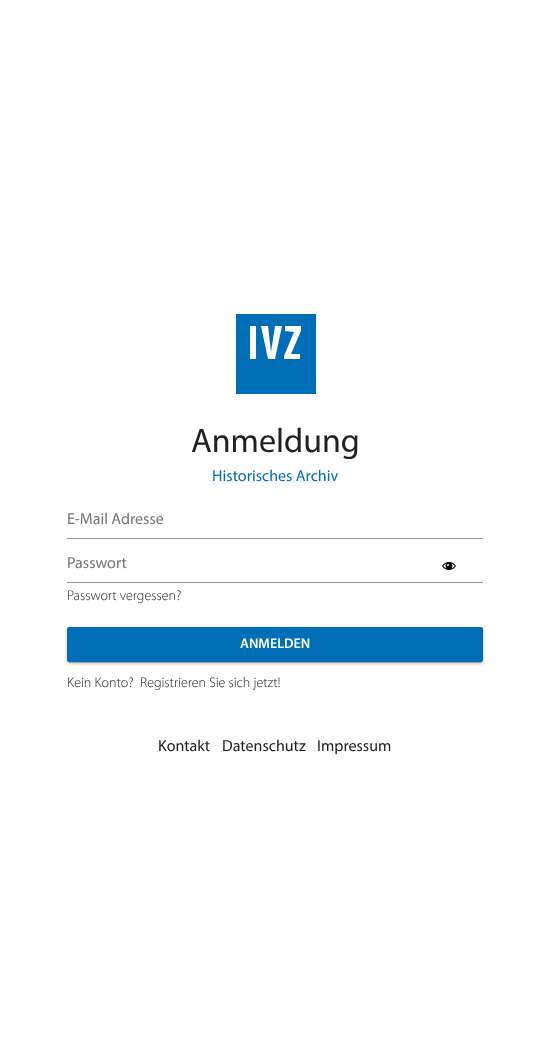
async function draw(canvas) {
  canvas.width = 550;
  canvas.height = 1047;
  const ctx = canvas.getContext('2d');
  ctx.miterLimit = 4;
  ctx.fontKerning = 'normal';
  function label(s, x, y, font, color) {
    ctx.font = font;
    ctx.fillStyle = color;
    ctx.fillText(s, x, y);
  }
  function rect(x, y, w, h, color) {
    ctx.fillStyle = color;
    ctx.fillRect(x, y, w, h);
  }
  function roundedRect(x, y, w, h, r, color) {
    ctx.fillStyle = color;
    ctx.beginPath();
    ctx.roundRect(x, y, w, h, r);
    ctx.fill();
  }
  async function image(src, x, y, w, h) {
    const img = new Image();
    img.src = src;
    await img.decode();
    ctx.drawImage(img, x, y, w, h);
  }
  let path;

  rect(0, 0, 550, 1047, '#fff');
  rect(236, 314, 80, 80, '#006eb7');
  ctx.fillStyle = '#fff';
  path = new Path2D('M284 359H300V354H291L301 331V326H285V331L294 332L284 356ZM275 359L282 326H275L271 352L268 326H261L268 359ZM250 359H256V326H250Z');
  ctx.fill(path);
  label('Anmeldung', 191, 452, '34px Myriad', '#212121');
  label('Historisches Archiv', 212, 481, '16px Myriad', '#006eb7');
  rect(67, 538, 416, 1, '#949494');
  label('E-Mail Adresse', 67, 524, '16px Myriad', '#757575');
  rect(67, 582, 416, 1, '#949494');
  label('Passwort', 67, 568, '16px Myriad', '#757575');
  await image('assets/img1.png', 442, 562, 14, 8);
  label('Passwort vergessen?', 67, 600, '300 14px Myriad', '#212121');
  ctx.fillStyle = '#0000001f';
  ctx.filter = 'blur(2.5px)';
  ctx.beginPath();
  ctx.roundRect(67, 628, 416, 35, 2);
  ctx.fill();
  ctx.filter = 'none';
  ctx.fillStyle = '#00000024';
  ctx.filter = 'blur(1px)';
  ctx.beginPath();
  ctx.roundRect(67, 629, 416, 35, 2);
  ctx.fill();
  ctx.filter = 'none';
  ctx.fillStyle = '#00000033';
  ctx.filter = 'blur(0.5px)';
  ctx.beginPath();
  ctx.rect(69, 632, 412, 31);
  ctx.fill();
  ctx.filter = 'none';
  roundedRect(67, 627, 416, 35, 2, '#006eb7');
  label('ANMELDEN', 240, 648, '600 14px Myriad', '#fff');
  label('Kein Konto?', 67, 687, '300 14px Myriad', '#212121');
  label('Registrieren Sie sich jetzt!', 140, 687, '300 14px Myriad', '#212121');
  label('Kontakt', 158, 751, '16px Myriad', '#212121');
  label('Datenschutz', 222, 751, '16px Myriad', '#212121');
  label('Impressum', 317, 751, '16px Myriad', '#212121');
}

draw(document.querySelector('canvas'));
